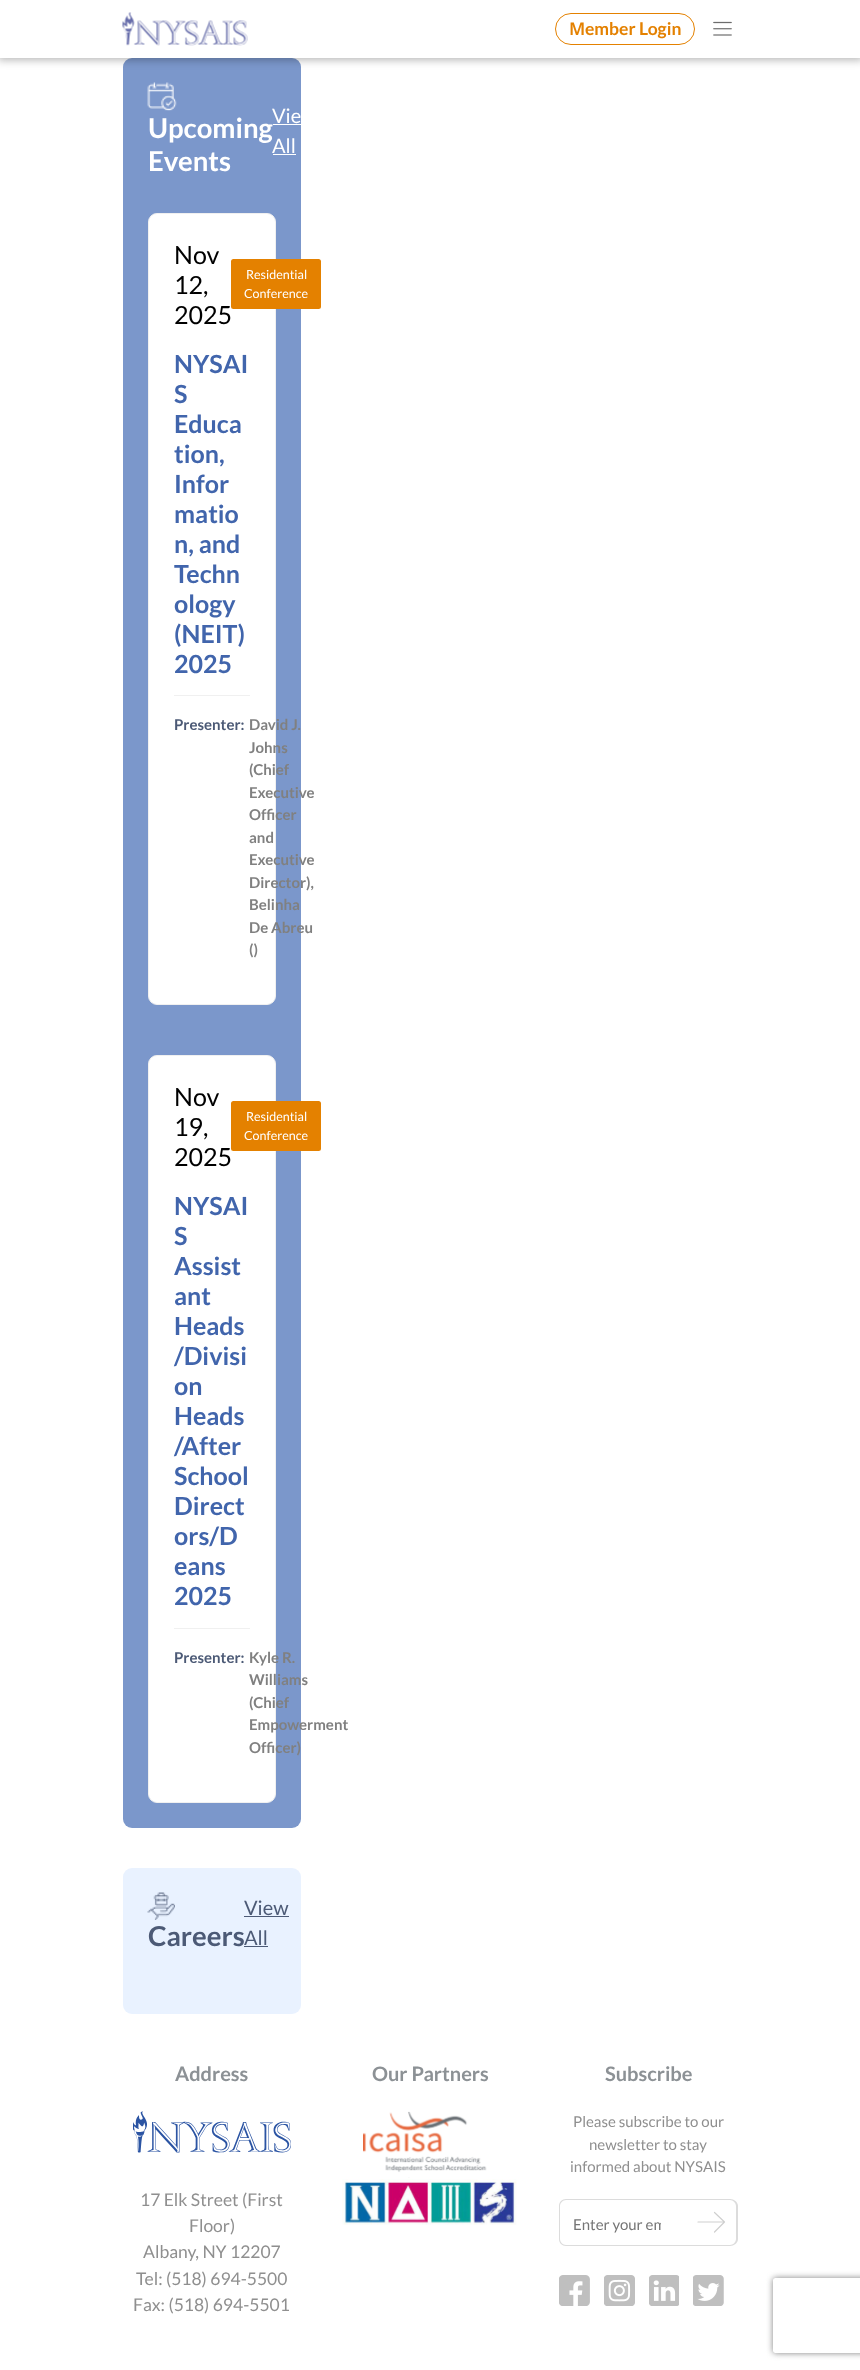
async function draw(canvas) {
  canvas.width = 860;
  canvas.height = 2370;
  const ctx = canvas.getContext('2d');
  ctx.miterLimit = 4;
  ctx.fontKerning = 'normal';
  function label(s, x, y, font, color) {
    ctx.font = font;
    ctx.fillStyle = color;
    ctx.fillText(s, x, y);
  }
  function rect(x, y, w, h, color) {
    ctx.fillStyle = color;
    ctx.fillRect(x, y, w, h);
  }
  function roundedRect(x, y, w, h, r, color) {
    ctx.fillStyle = color;
    ctx.beginPath();
    ctx.roundRect(x, y, w, h, r);
    ctx.fill();
  }
  async function image(src, x, y, w, h) {
    const img = new Image();
    img.src = src;
    await img.decode();
    ctx.drawImage(img, x, y, w, h);
  }
  let path;

  rect(0, 0, 860, 2370, '#fff');
  roundedRect(123, 58, 178, 1770, 9, '#7b97cb');
  ctx.fillStyle = '#0000004a';
  ctx.filter = 'blur(4.5px)';
  ctx.beginPath();
  ctx.rect(-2, -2, 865, 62);
  ctx.fill();
  ctx.filter = 'none';
  rect(0, 0, 860, 58, '#fff');
  await image('assets/img1.png', 122, 12, 126, 34);
  ctx.beginPath();
  ctx.roundRect(555.5, 13.5, 139, 31, 15.5);
  ctx.strokeStyle = '#e48100';
  ctx.stroke();
  label('M', 569, 35, '600 17.5px Noto Sans', '#e48100');
  label('ember Login', 585, 35, 'bold 17.5px Lato', '#e48100');
  await image('assets/img2.png', 713, 21, 19, 15);
  await image('assets/img3.png', 147, 82, 30, 29);
  label('Upcoming', 148, 138, 'bold 27.5px Lato', '#fff');
  label('Events', 148, 171, 'bold 27.5px Lato', '#fff');
  label('Vie', 272, 123, '20px Lato', '#fff');
  rect(273, 124, 28, 1, '#fff');
  label('All', 272, 153, '20px Lato', '#fff');
  rect(273, 154, 23, 1, '#fff');
  ctx.beginPath();
  ctx.roundRect(148.5, 213.5, 127, 791, 8.5);
  ctx.fill();
  ctx.strokeStyle = '#f0f0f0';
  ctx.stroke();
  label('Nov', 174, 264, '25px Lato', '#000');
  label('12,', 174, 294, '25px Lato', '#000');
  label('2025', 174, 324, '25px Lato', '#000');
  roundedRect(231, 259, 90, 50, 2.5, '#e48100');
  label('Residential', 246, 279, '12.5px Lato', '#fff');
  label('Conference', 244, 298, '12.5px Lato', '#fff');
  rect(174, 695, 76, 1, '#f0f0f0');
  label('NYSAI', 174, 373, 'bold 25px Lato', '#4165ac');
  label('S', 174, 403, 'bold 25px Lato', '#4165ac');
  label('Educa', 174, 433, 'bold 25px Lato', '#4165ac');
  label('tion,', 174, 463, 'bold 25px Lato', '#4165ac');
  label('Infor', 174, 493, 'bold 25px Lato', '#4165ac');
  label('matio', 174, 523, 'bold 25px Lato', '#4165ac');
  label('n, and', 174, 553, 'bold 25px Lato', '#4165ac');
  label('Techn', 174, 583, 'bold 25px Lato', '#4165ac');
  label('ology', 174, 613, 'bold 25px Lato', '#4165ac');
  label('(NEIT)', 174, 643, 'bold 25px Lato', '#4165ac');
  label('2025', 174, 673, 'bold 25px Lato', '#4165ac');
  label('Presenter:', 174, 730, 'bold 15px Lato', '#4c5a76');
  label('David J.', 249, 730, 'bold 15px Lato', '#808080');
  label('Johns', 249, 753, 'bold 15px Lato', '#808080');
  label('(Chief', 249, 775, 'bold 15px Lato', '#808080');
  label('Executive', 249, 798, 'bold 15px Lato', '#808080');
  label('Officer', 249, 820, 'bold 15px Lato', '#808080');
  label('and', 249, 843, 'bold 15px Lato', '#808080');
  label('Executive', 249, 865, 'bold 15px Lato', '#808080');
  label('Director),', 249, 888, 'bold 15px Lato', '#808080');
  label('Belinha', 249, 910, 'bold 15px Lato', '#808080');
  label('De Abreu', 249, 933, 'bold 15px Lato', '#808080');
  label('()', 249, 955, 'bold 15px Lato', '#808080');
  ctx.fillStyle = '#fff';
  ctx.beginPath();
  ctx.roundRect(148.5, 1055.5, 127, 747, 8.5);
  ctx.fill();
  ctx.stroke();
  label('Nov', 174, 1106, '25px Lato', '#000');
  label('19,', 174, 1136, '25px Lato', '#000');
  label('2025', 174, 1166, '25px Lato', '#000');
  roundedRect(231, 1101, 90, 50, 2.5, '#e48100');
  label('Residential', 246, 1121, '12.5px Lato', '#fff');
  label('Conference', 244, 1140, '12.5px Lato', '#fff');
  rect(174, 1628, 76, 1, '#f0f0f0');
  label('NYSAI', 174, 1215, 'bold 25px Lato', '#4165ac');
  label('S', 174, 1245, 'bold 25px Lato', '#4165ac');
  label('Assist', 174, 1275, 'bold 25px Lato', '#4165ac');
  label('ant', 174, 1305, 'bold 25px Lato', '#4165ac');
  label('Heads', 174, 1335, 'bold 25px Lato', '#4165ac');
  label('/Divisi', 174, 1365, 'bold 25px Lato', '#4165ac');
  label('on', 174, 1395, 'bold 25px Lato', '#4165ac');
  label('Heads', 174, 1425, 'bold 25px Lato', '#4165ac');
  label('/After', 174, 1455, 'bold 25px Lato', '#4165ac');
  label('School', 174, 1485, 'bold 25px Lato', '#4165ac');
  label('Direct', 174, 1515, 'bold 25px Lato', '#4165ac');
  label('ors/D', 174, 1545, 'bold 25px Lato', '#4165ac');
  label('eans', 174, 1575, 'bold 25px Lato', '#4165ac');
  label('2025', 174, 1605, 'bold 25px Lato', '#4165ac');
  label('Presenter:', 174, 1663, 'bold 15px Lato', '#4c5a76');
  label('Kyle R.', 249, 1663, 'bold 15px Lato', '#808080');
  label('Williams', 249, 1685, 'bold 15px Lato', '#808080');
  label('(Chief', 249, 1708, 'bold 15px Lato', '#808080');
  label('Empowerment', 249, 1730, 'bold 15px Lato', '#808080');
  label('Officer)', 249, 1753, 'bold 15px Lato', '#808080');
  roundedRect(123, 1868, 178, 146, 9, '#e9f2ff');
  await image('assets/img4.png', 147, 1892, 28, 28);
  label('Careers', 148, 1946, 'bold 27.5px Lato', '#4c5a76');
  label('View', 244, 1915, '20px Lato', '#4c5a76');
  rect(244, 1916, 45, 1, '#4c5a76');
  label('All', 244, 1945, '20px Lato', '#4c5a76');
  rect(244, 1946, 24, 1, '#4c5a76');
  label('Address', 175, 2081, 'bold 20px Lato', '#8c9195');
  await image('assets/img5.png', 133, 2111, 158, 42);
  label('17 Elk Street (First', 140, 2206, '17.5px Lato', '#8f8f8f');
  label('Floor)', 189, 2232, '17.5px Lato', '#8f8f8f');
  label('Albany, NY 12207', 143, 2258, '17.5px Lato', '#8f8f8f');
  label('Tel: (518) 694-5500', 136, 2285, '17.5px Lato', '#8f8f8f');
  label('Fax: (518) 694-5501', 133, 2311, '17.5px Lato', '#8f8f8f');
  label('Our Partners', 372, 2081, 'bold 20px Lato', '#8c9195');
  await image('assets/img6.png', 363, 2111, 124, 67);
  await image('assets/img7.png', 342, 2179, 175, 46);
  label('Subscribe', 605, 2081, 'bold 20px Lato', '#8c9195');
  label('Please subscribe to our', 573, 2127, '15px Lato', '#8f8f8f');
  label('newsletter to stay', 589, 2150, '15px Lato', '#8f8f8f');
  label('informed about NYSAIS', 570, 2172, '15px Lato', '#8f8f8f');
  ctx.fillStyle = '#dcdcdc';
  path = new Path2D('M566 2199H674V2246H566C562 2246 559 2243 559 2239V2206C559 2202 562 2199 566 2199ZM566 2200H674V2245H566C563 2245 560 2242 560 2239V2206C560 2203 563 2200 566 2200Z');
  ctx.fill(path, 'evenodd');
  ctx.save();
  ctx.beginPath();
  ctx.rect(573, 2215, 88, 19);
  ctx.clip();
  label('Enter your em', 573, 2230, '15px Lato', '#757575');
  ctx.restore();
  path = new Path2D('M674 2199H730C734 2199 738 2202 738 2206V2239C738 2243 734 2246 730 2246H674ZM674 2200H730C733 2200 736 2203 736 2206V2239C736 2242 733 2245 730 2245H674Z');
  ctx.fill(path, 'evenodd');
  path = new Path2D('M698 2222H724.5M714.5 2212.5L724.5 2222L714.5 2232');
  ctx.strokeStyle = '#cfcfcf';
  ctx.lineWidth = 1.2;
  ctx.lineCap = 'round';
  ctx.lineJoin = 'round';
  ctx.stroke(path);
  await image('assets/img8.png', 559, 2275, 31, 31);
  await image('assets/img9.png', 604, 2275, 31, 31);
  await image('assets/img10.png', 649, 2275, 30, 31);
  await image('assets/img11.png', 693, 2275, 31, 31);
  ctx.save();
  path = new Path2D('M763 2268H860V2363H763ZM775.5 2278H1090.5C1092 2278 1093 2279 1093 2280.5V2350.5C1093 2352 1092 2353 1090.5 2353H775.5C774 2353 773 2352 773 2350.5V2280.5C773 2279 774 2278 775.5 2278Z');
  ctx.clip(path, 'evenodd');
  ctx.fillStyle = '#808080';
  ctx.filter = 'blur(3px)';
  ctx.beginPath();
  ctx.roundRect(773, 2278, 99, 75, 2.5);
  ctx.fill();
  ctx.filter = 'none';
  ctx.restore();
}

draw(document.querySelector('canvas'));
